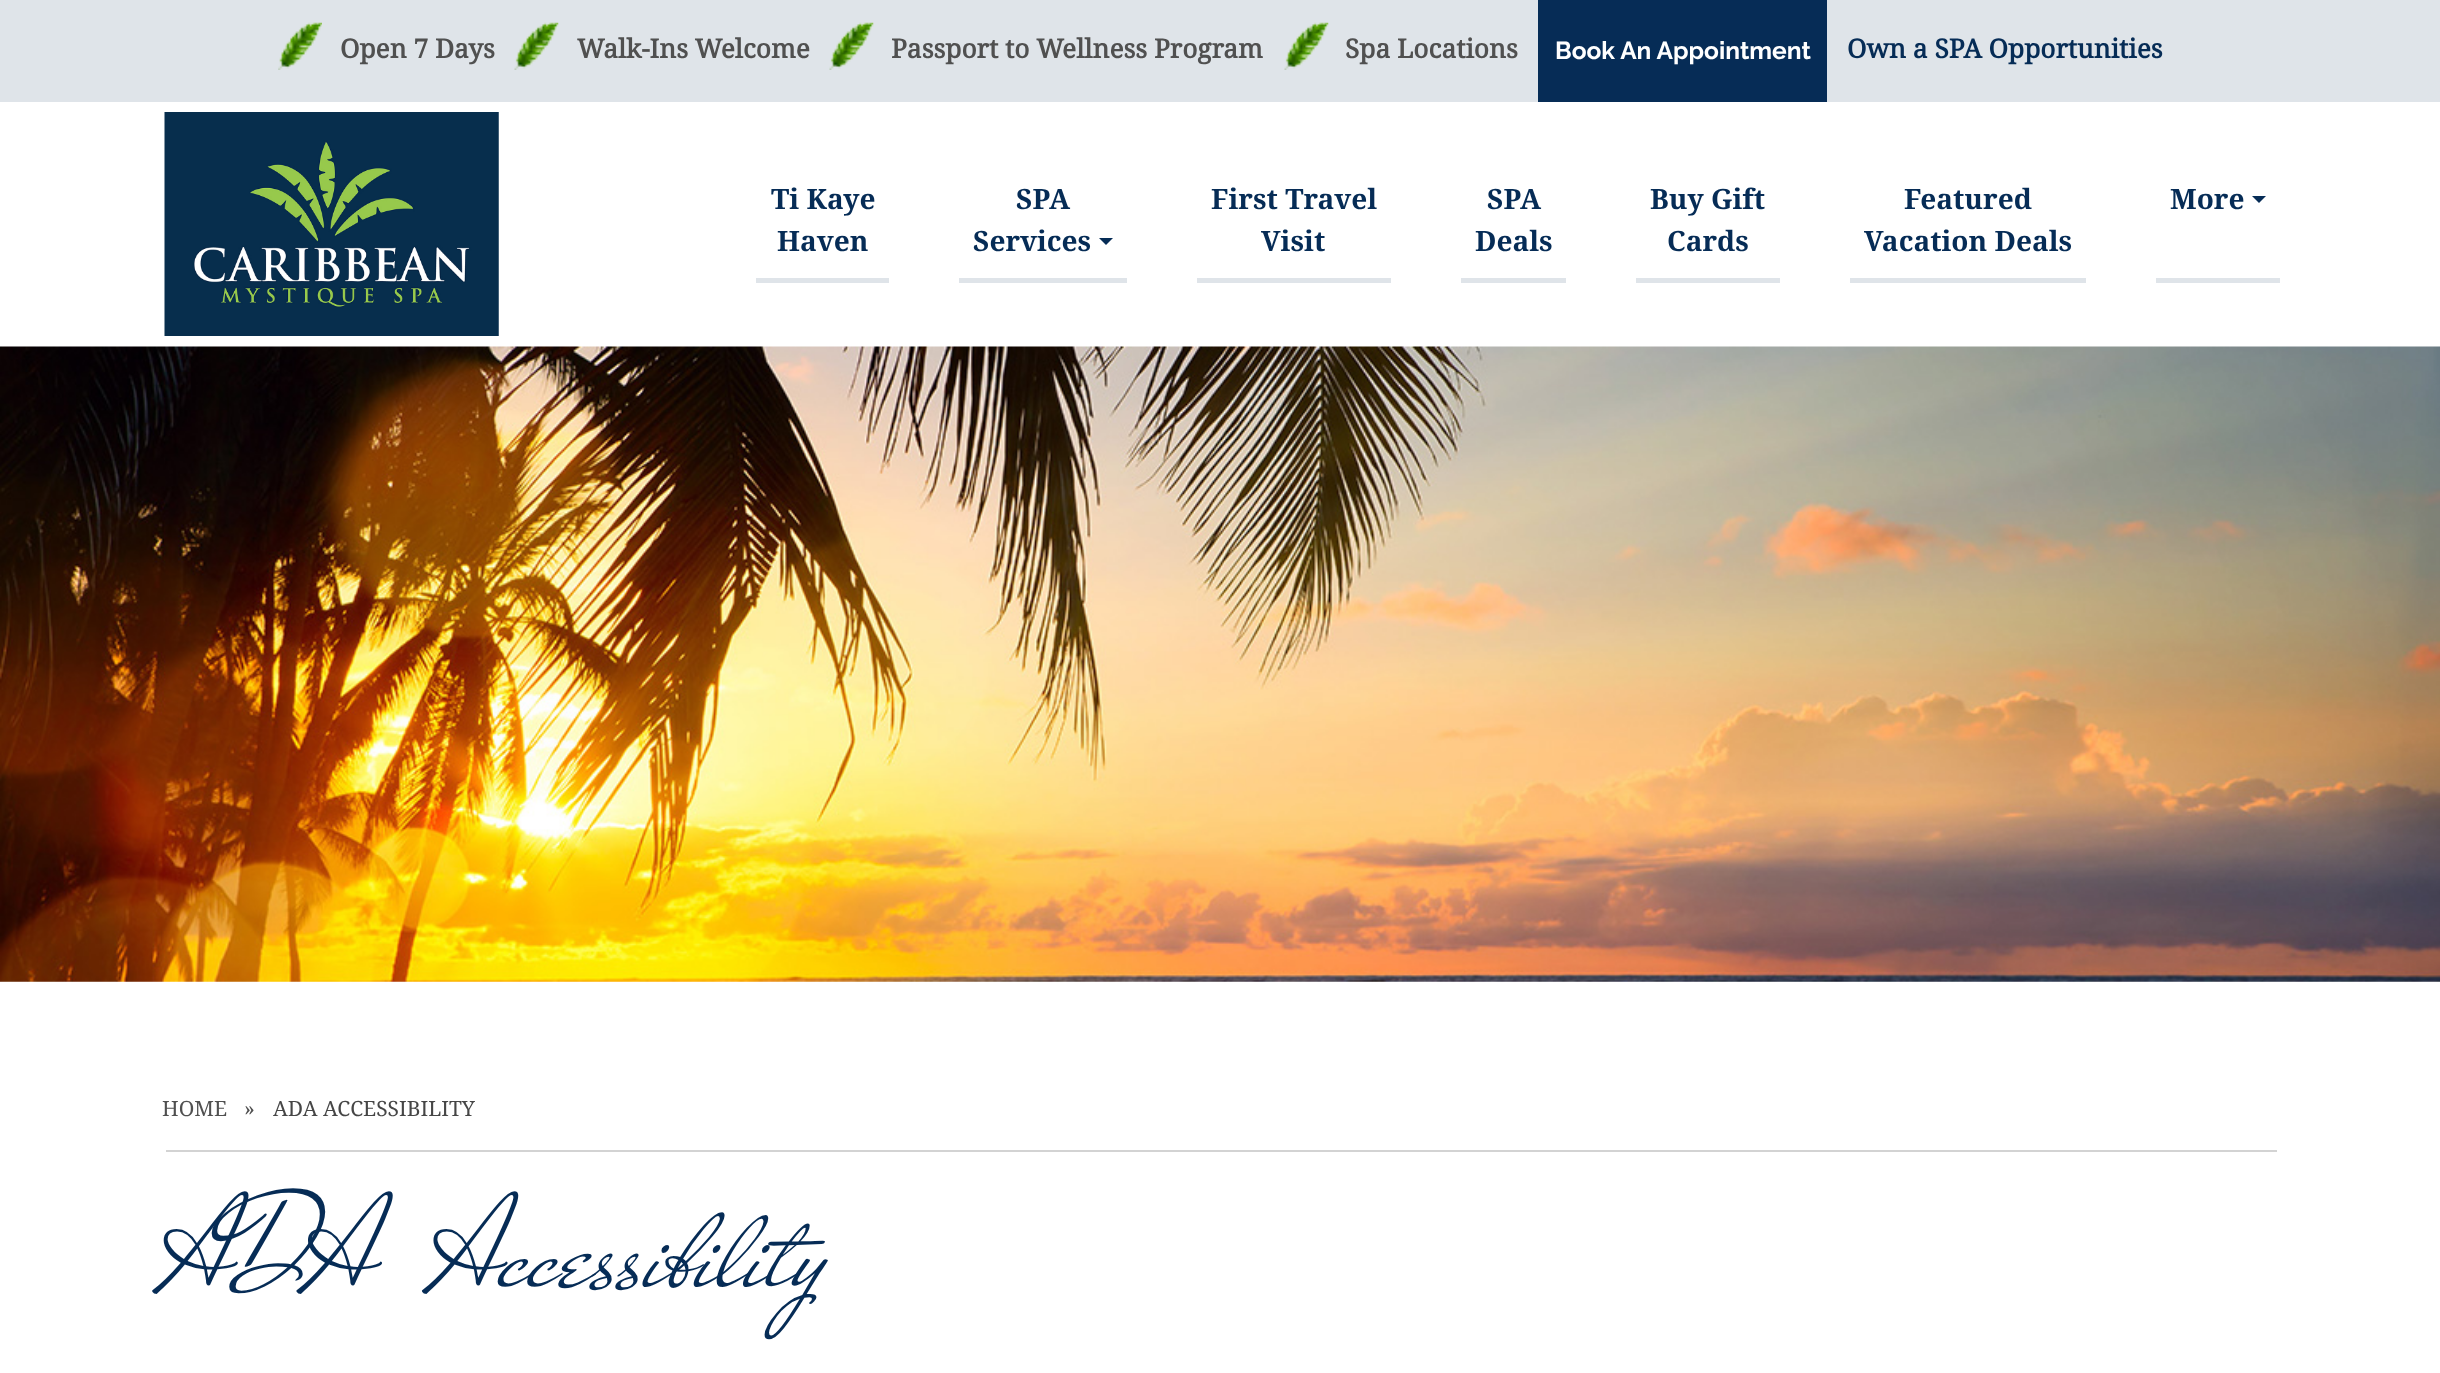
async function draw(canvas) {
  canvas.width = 2440;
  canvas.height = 1373;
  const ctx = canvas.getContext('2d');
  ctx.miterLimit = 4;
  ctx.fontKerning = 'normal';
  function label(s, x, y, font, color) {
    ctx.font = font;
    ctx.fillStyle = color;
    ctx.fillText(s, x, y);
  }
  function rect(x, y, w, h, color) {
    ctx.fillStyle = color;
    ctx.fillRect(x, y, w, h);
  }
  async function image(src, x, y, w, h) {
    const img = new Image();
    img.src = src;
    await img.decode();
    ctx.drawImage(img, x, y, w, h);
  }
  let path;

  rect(0, 0, 2440, 1373, '#fff');
  rect(0, 0, 2440, 102, '#dfe4e9');
  await image('assets/img1.png', 278, 22, 44, 48);
  label('Open 7 Days', 340, 58, 'bold 26.25px Droid Serif', '#505050');
  await image('assets/img2.png', 514, 22, 45, 48);
  label('Walk-Ins Welcome', 577, 58, 'bold 26.25px Droid Serif', '#505050');
  await image('assets/img2.png', 829, 22, 45, 48);
  label('Passport to Wellness Program', 891, 58, 'bold 26.25px Droid Serif', '#505050');
  await image('assets/img3.png', 1284, 22, 45, 48);
  label('Spa Locations', 1345, 58, 'bold 26.25px Droid Serif', '#505050');
  rect(1538, 0, 289, 102, '#062c56');
  label('Book An Appointment', 1555, 59, 'bold 24.5px Raleway', '#fff');
  label('Own a SPA Opportunities', 1847, 58, 'bold 26.25px Droid Serif', '#062c56');
  await image('assets/img4.png', 164, 112, 335, 224);
  rect(756, 278, 133, 5, '#dfe4e9');
  label('Ti Kaye', 771, 209, 'bold 28px "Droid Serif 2"', '#062c56');
  label('Haven', 777, 251, 'bold 28px "Droid Serif 2"', '#062c56');
  rect(959, 278, 168, 5, '#dfe4e9');
  label('SPA', 1016, 209, 'bold 28px "Droid Serif 2"', '#062c56');
  label('Services', 973, 251, 'bold 28px "Droid Serif 2"', '#062c56');
  path = new Path2D('M1099 238H1113L1106 245Z');
  ctx.fill(path);
  rect(1197, 278, 194, 5, '#dfe4e9');
  label('First Travel', 1211, 209, 'bold 28px "Droid Serif 2"', '#062c56');
  label('Visit', 1261, 251, 'bold 28px "Droid Serif 2"', '#062c56');
  rect(1461, 278, 105, 5, '#dfe4e9');
  label('SPA', 1487, 209, 'bold 28px "Droid Serif 2"', '#062c56');
  label('Deals', 1475, 251, 'bold 28px "Droid Serif 2"', '#062c56');
  rect(1636, 278, 144, 5, '#dfe4e9');
  label('Buy Gift', 1650, 209, 'bold 28px "Droid Serif 2"', '#062c56');
  label('Cards', 1667, 251, 'bold 28px "Droid Serif 2"', '#062c56');
  rect(1850, 278, 236, 5, '#dfe4e9');
  label('Featured', 1904, 209, 'bold 28px "Droid Serif 2"', '#062c56');
  label('Vacation Deals', 1864, 251, 'bold 28px "Droid Serif 2"', '#062c56');
  rect(2156, 278, 124, 5, '#dfe4e9');
  label('More', 2170, 209, 'bold 28px "Droid Serif 2"', '#062c56');
  path = new Path2D('M2252 196H2266L2259 203Z');
  ctx.fill(path);
  await image('assets/img5.png', 0, 346, 2440, 636);
  rect(166, 1150, 2111, 2, '#d3d3d3');
  label('HOME', 162, 1116, '21px Droid Serif', '#505050');
  label('»', 244, 1116, '21px Droid Serif', '#505050');
  label('ADA ACCESSIBILITY', 273, 1116, '21px Droid Serif', '#464646');
  ctx.wordSpacing = '35px';
  label('ADA Accessibility', 162, 1285, '131.25px Mr De Haviland', '#062c56');
}

draw(document.querySelector('canvas'));
